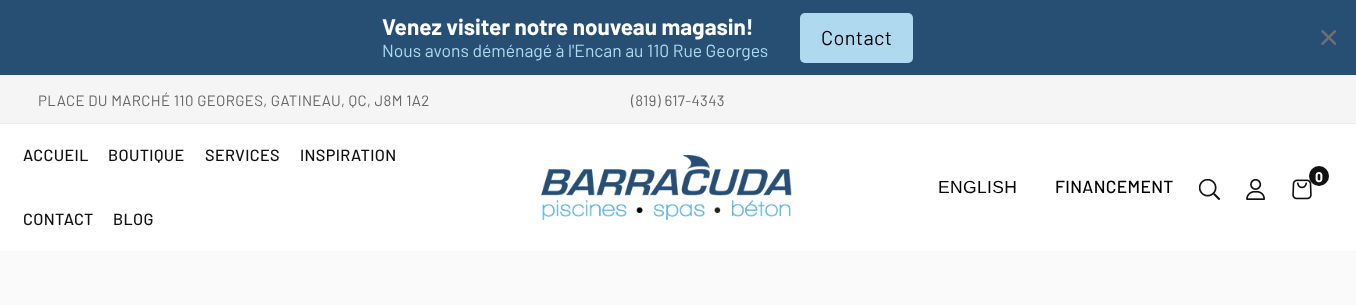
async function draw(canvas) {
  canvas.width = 1356;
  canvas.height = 305;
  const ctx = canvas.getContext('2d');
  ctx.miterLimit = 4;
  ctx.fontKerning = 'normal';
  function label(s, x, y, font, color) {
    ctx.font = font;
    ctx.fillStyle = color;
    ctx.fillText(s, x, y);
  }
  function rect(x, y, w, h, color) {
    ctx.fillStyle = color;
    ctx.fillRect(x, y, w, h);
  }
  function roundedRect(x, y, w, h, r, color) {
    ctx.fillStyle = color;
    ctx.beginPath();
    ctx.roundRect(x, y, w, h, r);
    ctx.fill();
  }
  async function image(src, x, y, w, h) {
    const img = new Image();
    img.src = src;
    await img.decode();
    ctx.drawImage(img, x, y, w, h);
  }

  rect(0, 0, 1356, 305, '#fff');
  rect(0, 0, 1356, 75, '#264f73');
  label('Venez visiter notre nouveau magasin!', 382, 35, 'bold 22.5px Barlow', '#fff');
  label('Nous avons déménagé à l\'Encan au 110 Rue Georges', 382, 57, '17.5px Barlow', '#afd9ee');
  roundedRect(800, 13, 113, 50, 5, '#afd9ee');
  ctx.letterSpacing = '0.35px';
  label('Contact', 821, 45, '20px Barlow', '#000');
  await image('assets/img1.png', 1321, 30, 15, 15);
  rect(0, 75, 1356, 48, '#f5f5f5');
  rect(0, 123, 1356, 1, '#eee');
  label('PLACE DU MARCHÉ 110 GEORGES, GATINEAU, QC, J8M 1A2', 38, 106, '15px Barlow', '#666');
  label('(819) 617-4343', 631, 106, '15px Barlow', '#666');
  label('ACCUEIL', 23, 161, '500 16.25px Barlow', '#111');
  label('BOUTIQUE', 108, 161, '500 16.25px Barlow', '#111');
  label('SERVICES', 205, 161, '500 16.25px Barlow', '#111');
  label('INSPIRATION', 300, 161, '500 16.25px Barlow', '#111');
  label('CONTACT', 23, 225, '500 16.25px Barlow', '#111');
  label('BLOG', 113, 225, '500 16.25px Barlow', '#111');
  await image('assets/img2.png', 541, 155, 251, 65);
  await image('assets/img3.png', 1292, 179, 20, 21);
  ctx.beginPath();
  ctx.arc(1319, 176, 10, 0, 2 * Math.PI);
  ctx.fill();
  label('0', 1315, 182, 'bold 14px Barlow', '#fff');
  label('ENGLISH', 938, 193, '17.5px Liberation Sans', '#000');
  label('FINANCEMENT', 1055, 193, '500 17.5px Barlow', '#000');
  await image('assets/img4.png', 1199, 179, 21, 21);
  await image('assets/img5.png', 1246, 179, 19, 21);
  rect(0, 251, 1356, 54, '#fafafa');
}

draw(document.querySelector('canvas'));
